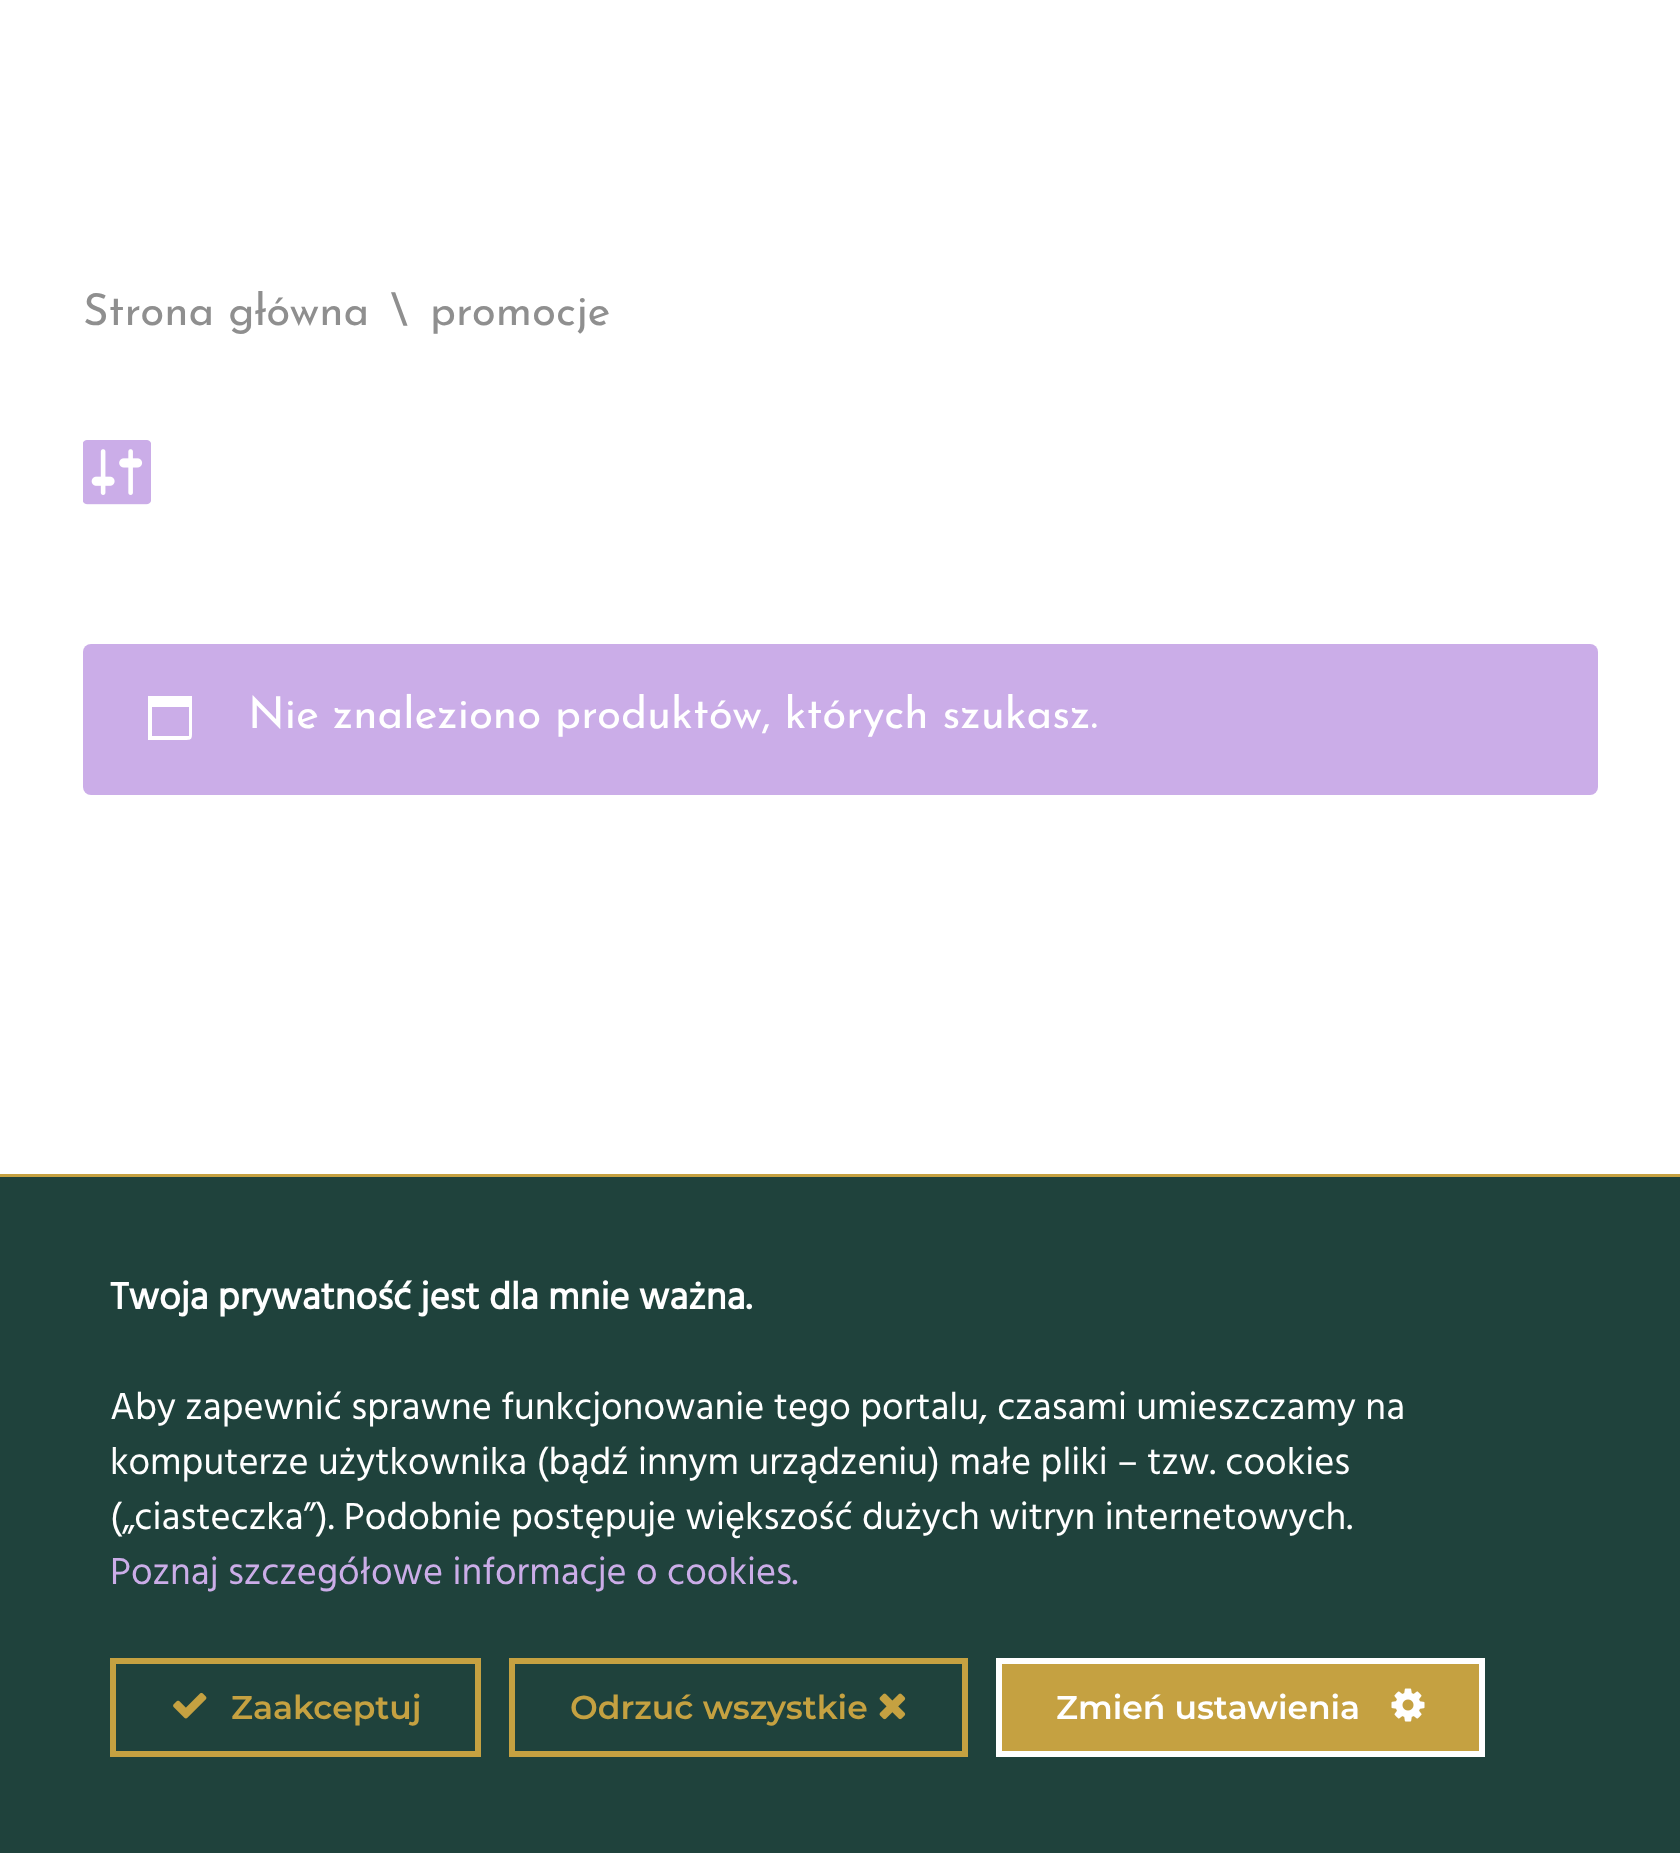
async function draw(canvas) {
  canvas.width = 1680;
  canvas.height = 1853;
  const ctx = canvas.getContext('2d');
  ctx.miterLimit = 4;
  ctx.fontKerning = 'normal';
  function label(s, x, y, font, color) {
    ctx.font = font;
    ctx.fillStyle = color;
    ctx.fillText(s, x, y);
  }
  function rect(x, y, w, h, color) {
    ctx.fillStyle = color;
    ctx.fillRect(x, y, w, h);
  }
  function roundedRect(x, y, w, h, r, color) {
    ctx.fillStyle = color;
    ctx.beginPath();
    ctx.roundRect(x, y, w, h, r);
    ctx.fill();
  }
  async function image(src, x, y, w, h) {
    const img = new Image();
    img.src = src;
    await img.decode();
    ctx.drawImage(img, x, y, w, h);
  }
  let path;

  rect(0, 0, 1680, 1853, '#fff');
  label('Strona główna', 83, 325, '44px Josefin Sans', '#8f8f8f');
  label('\\', 391, 325, '44px Josefin Sans', '#8f8f8f');
  label('promocje', 430, 325, '44px Josefin Sans', '#8f8f8f');
  await image('assets/img1.png', 83, 440, 68, 65);
  roundedRect(83, 644, 1515, 151, 8, '#cbade8');
  ctx.fillStyle = '#fff';
  path = new Path2D('M189 707H152V736H189ZM192 696V729C192 740 193 740 182 740H148V696Z');
  ctx.fill(path);
  label('Nie znaleziono produktów, których szukasz.', 248, 728, '44px Josefin Sans', '#fff');
  rect(0, 1177, 1680, 676, '#1f423c');
  rect(0, 1174, 1680, 3, '#c5a141');
  label('Twoja prywatność jest dla mnie ważna.', 110, 1309, 'bold 38.5px Hind', '#fff');
  label('Aby zapewnić sprawne funkcjonowanie tego portalu, czasami umieszczamy na', 110, 1419, '38.5px Hind', '#fff');
  label('komputerze użytkownika (bądź innym urządzeniu) małe pliki – tzw. cookies', 110, 1474, '38.5px Hind', '#fff');
  label('(„ciasteczka”). Podobnie postępuje większość dużych witryn internetowych.', 110, 1529, '38.5px Hind', '#fff');
  label('Poznaj szczegółowe informacje o cookies.', 110, 1584, '38.5px Hind', '#cbade8');
  ctx.strokeStyle = '#c5a141';
  ctx.lineWidth = 6;
  ctx.strokeRect(113, 1661, 365, 93);
  await image('assets/img2.png', 173, 1692, 34, 27);
  label('Zaakceptuj', 231, 1719, '600 33px Montserrat', '#c5a141');
  ctx.strokeRect(512, 1661, 453, 93);
  label('Odrzuć wszystkie', 570, 1719, '600 33px Montserrat', '#c5a141');
  await image('assets/img3.png', 879, 1693, 27, 27);
  ctx.beginPath();
  ctx.rect(999, 1661, 483, 93);
  ctx.fill();
  ctx.strokeStyle = '#fff';
  ctx.stroke();
  label('Zmień ustawienia', 1056, 1719, '600 33px Montserrat', '#fff');
  await image('assets/img4.png', 1391, 1688, 34, 34);
}

draw(document.querySelector('canvas'));
